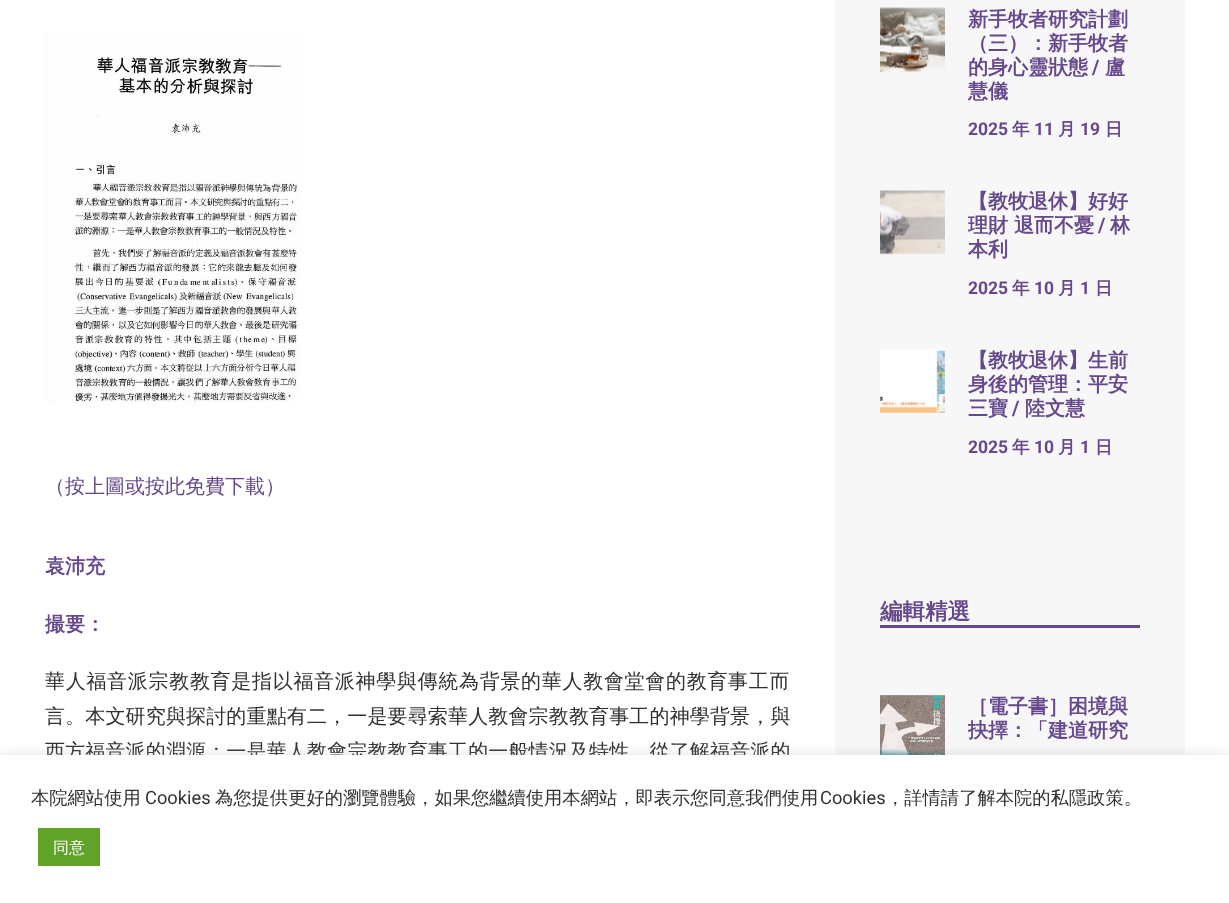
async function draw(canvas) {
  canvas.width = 1229;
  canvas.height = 903;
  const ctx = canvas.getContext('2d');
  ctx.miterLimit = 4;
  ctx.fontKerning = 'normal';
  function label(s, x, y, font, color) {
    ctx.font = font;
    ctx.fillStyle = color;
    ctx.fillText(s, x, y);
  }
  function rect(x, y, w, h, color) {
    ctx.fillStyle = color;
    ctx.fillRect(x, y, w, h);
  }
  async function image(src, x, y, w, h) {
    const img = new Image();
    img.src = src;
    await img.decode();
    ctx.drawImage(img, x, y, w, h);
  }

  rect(0, 0, 1229, 903, '#fff');
  await image('assets/img1.png', 45, 31, 256, 372);
  label('（按上圖或按此免費下載）', 45, 493, '500 20px WenQuanYi Zen Hei', '#66488c');
  label('袁沛充', 45, 573, 'bold 20px WenQuanYi Zen Hei', '#66488c');
  label('撮要：', 45, 631, 'bold 20px WenQuanYi Zen Hei', '#66488c');
  ctx.letterSpacing = '0.7px';
  label('華人福音派宗教教育是指以福音派神學與傳統為背景的華人教會堂會的教育事工而', 45, 688, '500 20px WenQuanYi Zen Hei', '#303133');
  ctx.letterSpacing = '0.15px';
  label('言。本文研究與探討的重點有二，一是要尋索華人教會宗教教育事工的神學背景，與', 45, 723, '500 20px WenQuanYi Zen Hei', '#303133');
  label('西方福音派的淵源；一是華人教會宗教教育事工的一般情況及特性。從了解福音派的', 45, 758, '500 20px WenQuanYi Zen Hei', '#303133');
  rect(835, 0, 350, 755, '#f7f7f7');
  await image('assets/img2.png', 880, 7, 65, 65);
  ctx.letterSpacing = '0px';
  label('新手牧者研究計劃', 968, 26, 'bold 20px WenQuanYi Zen Hei', '#66488c');
  label('（三）：新手牧者', 968, 50, 'bold 20px WenQuanYi Zen Hei', '#66488c');
  label('的身心靈狀態', 968, 74, 'bold 20px WenQuanYi Zen Hei', '#66488c');
  label('/', 1092, 74, 'bold 20px Roboto', '#66488c');
  label('盧', 1105, 74, 'bold 20px WenQuanYi Zen Hei', '#66488c');
  label('慧儀', 968, 98, 'bold 20px WenQuanYi Zen Hei', '#66488c');
  label('2025', 968, 135, 'bold 17.5px Roboto', '#66488c');
  label('年', 1012, 135, 'bold 17.5px WenQuanYi Zen Hei', '#66488c');
  label('11', 1034, 135, 'bold 17.5px Roboto', '#66488c');
  label('月', 1058, 135, 'bold 17.5px WenQuanYi Zen Hei', '#66488c');
  label('19', 1080, 135, 'bold 17.5px Roboto', '#66488c');
  label('日', 1105, 135, 'bold 17.5px WenQuanYi Zen Hei', '#66488c');
  await image('assets/img3.png', 880, 190, 65, 65);
  label('【教牧退休】好好', 968, 208, 'bold 20px WenQuanYi Zen Hei', '#66488c');
  label('理財 退而不憂', 968, 232, 'bold 20px WenQuanYi Zen Hei', '#66488c');
  label('/', 1098, 232, 'bold 20px Roboto', '#66488c');
  label('林', 1110, 232, 'bold 20px WenQuanYi Zen Hei', '#66488c');
  label('本利', 968, 256, 'bold 20px WenQuanYi Zen Hei', '#66488c');
  label('2025', 968, 294, 'bold 17.5px Roboto', '#66488c');
  label('年', 1012, 294, 'bold 17.5px WenQuanYi Zen Hei', '#66488c');
  label('10', 1034, 294, 'bold 17.5px Roboto', '#66488c');
  label('月', 1058, 294, 'bold 17.5px WenQuanYi Zen Hei', '#66488c');
  label('1', 1080, 294, 'bold 17.5px Roboto', '#66488c');
  label('日', 1095, 294, 'bold 17.5px WenQuanYi Zen Hei', '#66488c');
  await image('assets/img4.png', 880, 349, 65, 64);
  label('【教牧退休】生前', 968, 367, 'bold 20px WenQuanYi Zen Hei', '#66488c');
  label('身後的管理：平安', 968, 391, 'bold 20px WenQuanYi Zen Hei', '#66488c');
  label('三寶', 968, 415, 'bold 20px WenQuanYi Zen Hei', '#66488c');
  label('/', 1012, 415, 'bold 20px Roboto', '#66488c');
  label('陸文慧', 1025, 415, 'bold 20px WenQuanYi Zen Hei', '#66488c');
  label('2025', 968, 453, 'bold 17.5px Roboto', '#66488c');
  label('年', 1012, 453, 'bold 17.5px WenQuanYi Zen Hei', '#66488c');
  label('10', 1034, 453, 'bold 17.5px Roboto', '#66488c');
  label('月', 1058, 453, 'bold 17.5px WenQuanYi Zen Hei', '#66488c');
  label('1', 1080, 453, 'bold 17.5px Roboto', '#66488c');
  label('日', 1095, 453, 'bold 17.5px WenQuanYi Zen Hei', '#66488c');
  rect(880, 625, 260, 3, '#66488c');
  label('編輯精選', 880, 619, 'bold 22.5px WenQuanYi Zen Hei', '#66488c');
  await image('assets/img5.png', 880, 695, 65, 60);
  label('［電子書］困境與', 968, 713, 'bold 20px WenQuanYi Zen Hei', '#66488c');
  label('抉擇：「建道研究', 968, 737, 'bold 20px WenQuanYi Zen Hei', '#66488c');
  ctx.fillStyle = '#acabab4d';
  ctx.filter = 'blur(6px)';
  ctx.beginPath();
  ctx.rect(0, 754, 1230, 149);
  ctx.fill();
  ctx.filter = 'none';
  rect(0, 755, 1229, 148, '#fff');
  label('本院網站使用', 31, 804, '500 18.3px WenQuanYi Zen Hei', '#303133');
  label('Cookies', 145, 804, '18.3px Roboto', '#303133');
  label('為您提供更好的瀏覽體驗，如果您繼續使用本網站，即表示您同意我們使用', 215, 804, '500 18.3px WenQuanYi Zen Hei', '#303133');
  label('Cookies', 820, 804, '18.3px Roboto', '#303133');
  label('，詳情請了解本院的私隱政策。', 886, 804, '500 18.3px WenQuanYi Zen Hei', '#303133');
  rect(38, 828, 62, 38, '#61a229');
  label('同意', 53, 853, '500 16px WenQuanYi Zen Hei', '#fff');
}

draw(document.querySelector('canvas'));
